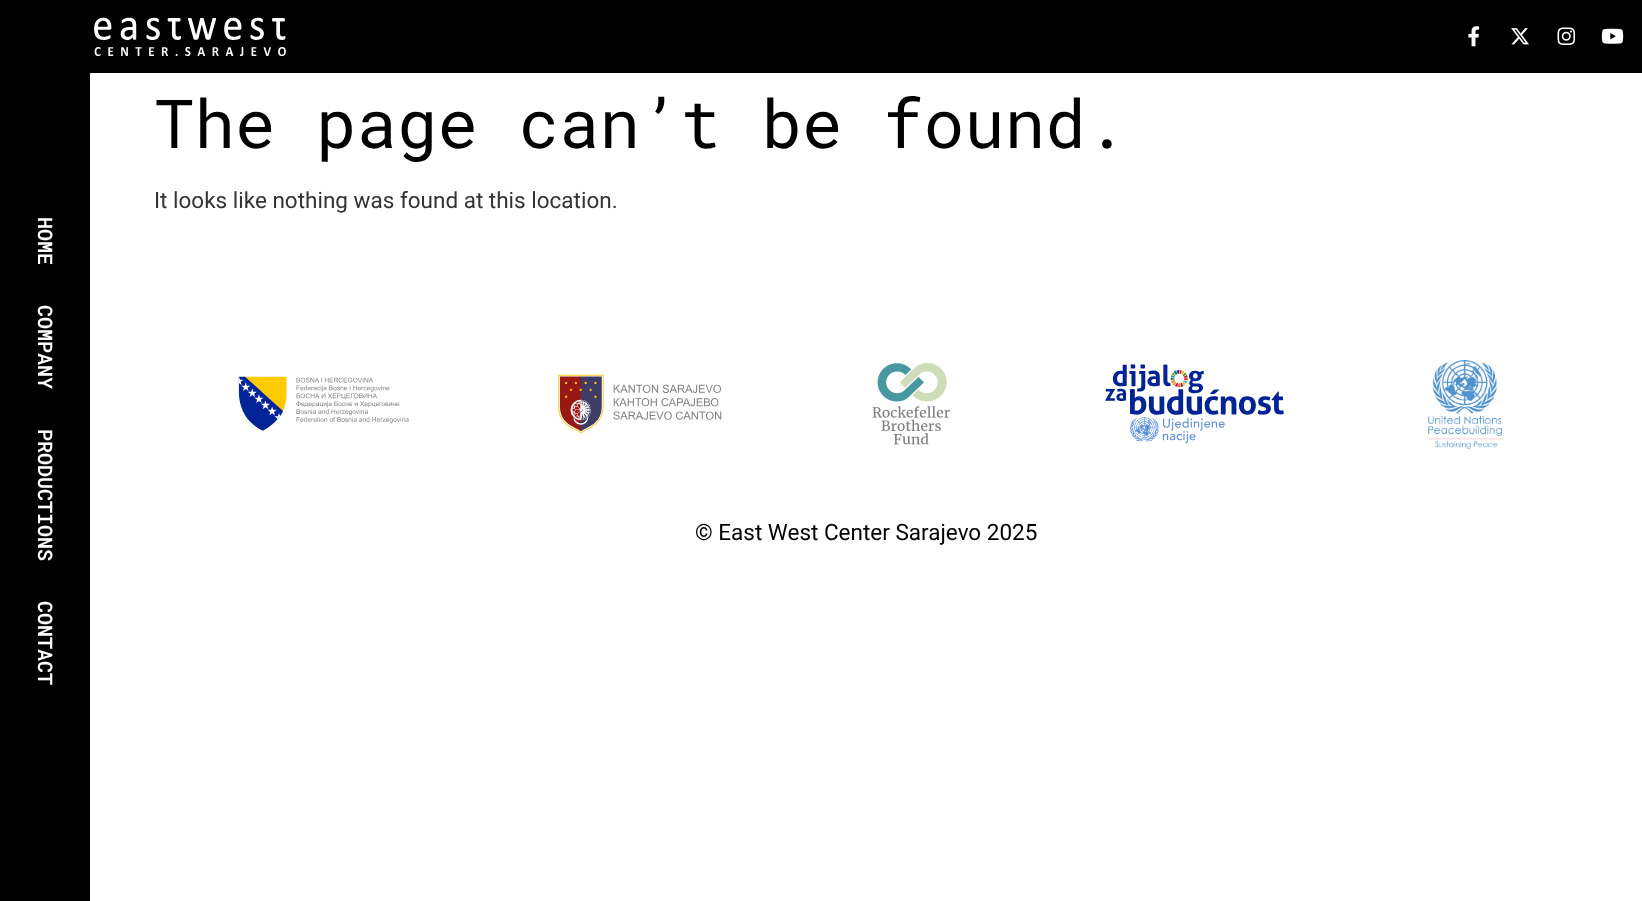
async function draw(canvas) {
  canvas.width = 1642;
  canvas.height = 901;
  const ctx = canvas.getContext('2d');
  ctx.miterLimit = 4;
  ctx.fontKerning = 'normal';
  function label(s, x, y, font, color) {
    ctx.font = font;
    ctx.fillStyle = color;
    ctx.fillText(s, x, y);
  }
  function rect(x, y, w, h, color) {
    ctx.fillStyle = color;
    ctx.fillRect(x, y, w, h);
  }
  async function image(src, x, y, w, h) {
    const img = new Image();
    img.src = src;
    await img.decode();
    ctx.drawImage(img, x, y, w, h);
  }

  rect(0, 0, 1642, 901, '#fff');
  label('The page can’t be found.', 154, 148, '67.5px Roboto Mono', '#000');
  label('It looks like nothing was found at this location.', 154, 208, '22.5px Roboto', '#333');
  rect(90, 0, 1552, 73, '#000');
  await image('assets/img1.png', 94, 17, 192, 39);
  await image('assets/img2.png', 1468, 26, 12, 21);
  await image('assets/img3.png', 1511, 28, 18, 17);
  await image('assets/img4.png', 1557, 27, 19, 18);
  await image('assets/img5.png', 1601, 28, 23, 16);
  rect(0, 0, 90, 901, '#000');
  ctx.font = '600 20px Roboto Mono';
  ctx.fillStyle = '#fff';
  ctx.save();
  ctx.translate(38, 217);
  ctx.rotate(90 * Math.PI / 180);
  ctx.fillText('HOME', 0, 0);
  ctx.restore();
  ctx.save();
  ctx.translate(38, 305);
  ctx.rotate(90 * Math.PI / 180);
  ctx.fillText('COMPANY', 0, 0);
  ctx.restore();
  ctx.save();
  ctx.translate(38, 429);
  ctx.rotate(90 * Math.PI / 180);
  ctx.fillText('PRODUCTIONS', 0, 0);
  ctx.restore();
  ctx.save();
  ctx.translate(38, 601);
  ctx.rotate(90 * Math.PI / 180);
  ctx.fillText('CONTACT', 0, 0);
  ctx.restore();
  await image('assets/img6.png', 238, 376, 171, 55);
  await image('assets/img7.png', 558, 374, 164, 60);
  await image('assets/img8.png', 872, 363, 78, 82);
  await image('assets/img9.png', 1105, 364, 179, 80);
  await image('assets/img10.png', 1428, 360, 74, 89);
  label('© East West Center Sarajevo 2025', 695, 540, '22.5px Roboto', '#000');
}

draw(document.querySelector('canvas'));
